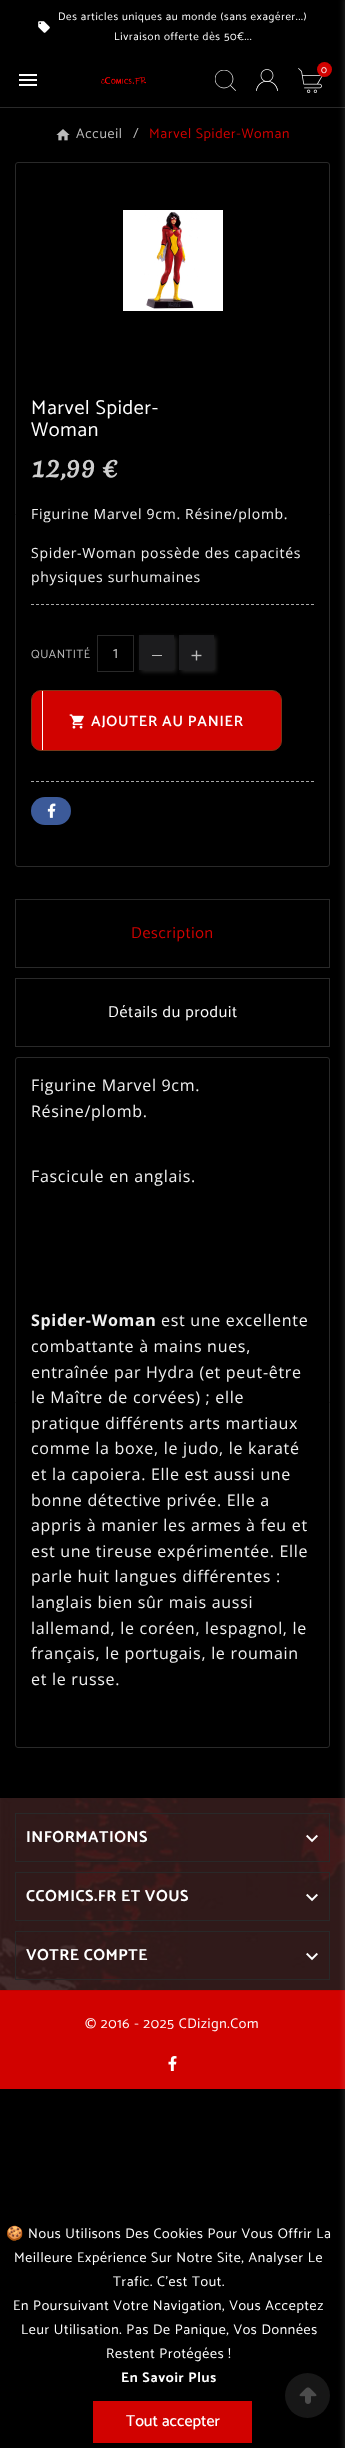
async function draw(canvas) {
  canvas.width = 345;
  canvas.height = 2448;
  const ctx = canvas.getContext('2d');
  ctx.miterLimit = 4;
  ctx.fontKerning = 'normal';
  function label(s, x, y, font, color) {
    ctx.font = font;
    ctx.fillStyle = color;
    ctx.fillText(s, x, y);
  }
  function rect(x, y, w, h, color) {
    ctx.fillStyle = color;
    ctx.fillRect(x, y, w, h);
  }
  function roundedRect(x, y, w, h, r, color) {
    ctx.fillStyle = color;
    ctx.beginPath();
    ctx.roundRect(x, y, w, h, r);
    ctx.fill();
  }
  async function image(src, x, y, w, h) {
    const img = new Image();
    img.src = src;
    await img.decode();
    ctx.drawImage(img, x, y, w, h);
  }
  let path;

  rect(0, 0, 345, 2448, '#000');
  rect(0, 107, 345, 1, '#292929');
  await image('assets/img1.png', 38, 21, 12, 12);
  ctx.letterSpacing = '0.7px';
  label('Des articles uniques au monde (sans exagérer...)', 58, 20, '11px Catamaran', '#fff');
  label('Livraison offerte dès 50€...', 114, 40, '11px Catamaran', '#fff');
  path = new Path2D('M235.5 91L230 85.5L230.5 85L236 90.5Z');
  ctx.fill(path);
  ctx.save();
  ctx.beginPath();
  ctx.rect(215, 70, 21, 21);
  ctx.clip();
  ctx.beginPath();
  ctx.arc(224, 79, 9, 0, 2 * Math.PI);
  ctx.strokeStyle = '#fff';
  ctx.lineWidth = 0.7;
  ctx.stroke();
  ctx.restore();
  await image('assets/img2.png', 256, 69, 22, 22);
  await image('assets/img3.png', 298, 68, 25, 25);
  ctx.fillStyle = '#d10200';
  ctx.beginPath();
  ctx.arc(324.5, 69.5, 7.5, 0, 2 * Math.PI);
  ctx.fill();
  label('0', 321, 73, '10px Catamaran', '#fff');
  await image('assets/img11.png', 0, 1798, 345, 192);
  rect(0, 1991, 345, 98, '#d10200');
  rect(0, 1990, 345, 1, '#c20200');
  ctx.fillStyle = '#ffffff1a';
  ctx.filter = 'blur(2.5px)';
  ctx.beginPath();
  ctx.rect(343, -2, 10, 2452);
  ctx.fill();
  ctx.filter = 'none';
  await image('assets/img4.png', 19, 74, 18, 12);
  await image('assets/img5.png', 101, 77, 45, 8);
  await image('assets/img6.png', 56, 129, 14, 12);
  label('Accueil', 76, 138, '14px Catamaran', '#bbb');
  label('/', 133, 138, '14px Catamaran', '#bbb');
  label('Marvel Spider-Woman', 149, 138, '14px Catamaran', '#d10200');
  ctx.beginPath();
  ctx.roundRect(15.5, 162.5, 314, 704, 2.5);
  ctx.strokeStyle = '#292929';
  ctx.stroke();
  await image('assets/img7.png', 123, 210, 100, 101);
  label('Marvel Spider-', 31, 414, '20px Catamaran', '#fff');
  label('Woman', 31, 436, '20px Catamaran', '#fff');
  ctx.letterSpacing = '0px';
  label('12,99 €', 31, 477, 'bold 24px Merienda', '#cfcfcf');
  ctx.letterSpacing = '0.7px';
  label('Figurine Marvel 9cm. Résine/plomb.', 31, 519, '14px Open Sans', '#f0f0f0');
  label('Spider-Woman possède des capacités', 31, 558, '14px Open Sans', '#f0f0f0');
  label('physiques surhumaines', 31, 582, '14px Open Sans', '#f0f0f0');
  path = new Path2D('M31 604.5H314');
  ctx.strokeStyle = '#a7a7a7';
  ctx.setLineDash([3, 2]);
  ctx.stroke(path);
  ctx.letterSpacing = '0.5px';
  label('QUANTITÉ', 31, 658, '12px Catamaran', '#bbb');
  ctx.strokeStyle = '#292929';
  ctx.setLineDash([]);
  ctx.strokeRect(97.5, 635.5, 36, 36);
  ctx.letterSpacing = '0px';
  label('1', 113, 658, '16px Catamaran', '#bbb');
  ctx.fillStyle = '#ffffff24';
  ctx.filter = 'blur(2px)';
  ctx.beginPath();
  ctx.rect(181, 637, 35, 35);
  ctx.fill();
  ctx.filter = 'none';
  rect(179, 635, 35, 35, '#1c1c1e');
  ctx.fillStyle = '#ffffff24';
  ctx.filter = 'blur(2px)';
  ctx.beginPath();
  ctx.rect(141, 637, 35, 35);
  ctx.fill();
  ctx.filter = 'none';
  rect(139, 635, 35, 35, '#1c1c1e');
  rect(152, 655, 10, 1, '#bbb');
  await image('assets/img8.png', 191, 650, 11, 11);
  ctx.fillStyle = '#d10200';
  ctx.beginPath();
  ctx.roundRect(31.5, 690.5, 250, 60, 9.5);
  ctx.fill();
  ctx.strokeStyle = '#7a3618';
  ctx.stroke();
  rect(42, 691, 1, 59, '#fff');
  await image('assets/img9.png', 69, 714, 15, 15);
  ctx.letterSpacing = '0.75px';
  label('AJOUTER AU PANIER', 91, 726, '600 15px Catamaran', '#fff');
  path = new Path2D('M31 781.5H314');
  ctx.strokeStyle = '#a7a7a7';
  ctx.setLineDash([3, 2]);
  ctx.stroke(path);
  roundedRect(31, 797, 40, 28, 14, '#3c5a99');
  await image('assets/img10.png', 47, 803, 9, 15);
  ctx.strokeStyle = '#292929';
  ctx.setLineDash([]);
  ctx.strokeRect(15.5, 899.5, 314, 68);
  ctx.letterSpacing = '0.7px';
  label('Description', 131, 938, '16px Catamaran', '#d10200');
  ctx.strokeRect(15.5, 978.5, 314, 68);
  label('Détails du produit', 108, 1017, '16px Catamaran', '#fff');
  ctx.beginPath();
  ctx.roundRect(15.5, 1057.5, 314, 690, 2.5);
  ctx.stroke();
  label('Figurine Marvel 9cm.', 31, 1091, '16px Open Sans', '#f0f0f0');
  label('Résine/plomb.', 31, 1117, '16px Open Sans', '#f0f0f0');
  label('Fascicule en anglais.', 31, 1182, '16px Open Sans', '#f0f0f0');
  label('Spider-Woman', 31, 1326, 'bold 16px Open Sans', '#f0f0f0');
  label('est une excellente', 161, 1326, '16px Open Sans', '#f0f0f0');
  label('combattante à mains nues,', 31, 1352, '16px Open Sans', '#f0f0f0');
  label('entraînée par Hydra (et peut-être', 31, 1378, '16px Open Sans', '#f0f0f0');
  label('le Maître de corvées) ; elle', 31, 1403, '16px Open Sans', '#f0f0f0');
  label('pratique différents arts martiaux', 31, 1429, '16px Open Sans', '#f0f0f0');
  label('comme la boxe, le judo, le karaté', 31, 1454, '16px Open Sans', '#f0f0f0');
  label('et la capoiera. Elle est aussi une', 31, 1480, '16px Open Sans', '#f0f0f0');
  label('bonne détective privée. Elle a', 31, 1506, '16px Open Sans', '#f0f0f0');
  label('appris à manier les armes à feu et', 31, 1531, '16px Open Sans', '#f0f0f0');
  label('est une tireuse expérimentée. Elle', 31, 1557, '16px Open Sans', '#f0f0f0');
  label('parle huit langues différentes :', 31, 1582, '16px Open Sans', '#f0f0f0');
  label('langlais bien sûr mais aussi', 31, 1608, '16px Open Sans', '#f0f0f0');
  label('lallemand, le coréen, lespagnol, le', 31, 1634, '16px Open Sans', '#f0f0f0');
  label('français, le portugais, le roumain', 31, 1659, '16px Open Sans', '#f0f0f0');
  label('et le russe.', 31, 1685, '16px Open Sans', '#f0f0f0');
  ctx.strokeRect(15.5, 1813.5, 314, 48);
  ctx.letterSpacing = '0.5px';
  label('INFORMATIONS', 26, 1842, 'bold 16px Catamaran', '#fff');
  await image('assets/img12.png', 306, 1834, 12, 9);
  ctx.strokeRect(15.5, 1872.5, 314, 48);
  label('CCOMICS.FR ET VOUS', 26, 1901, 'bold 16px Catamaran', '#fff');
  await image('assets/img13.png', 306, 1893, 12, 9);
  ctx.strokeRect(15.5, 1931.5, 314, 48);
  label('VOTRE COMPTE', 26, 1960, 'bold 16px Catamaran', '#fff');
  await image('assets/img14.png', 306, 1952, 12, 9);
  ctx.fillStyle = '#171717';
  ctx.beginPath();
  ctx.arc(307.5, 2395.5, 22.5, 0, 2 * Math.PI);
  ctx.fill();
  await image('assets/img15.png', 299, 2387, 18, 17);
  ctx.letterSpacing = '0.7px';
  label('© 2016 - 2025 CDizign.Com', 85, 2028, '14px Catamaran', '#fff');
  await image('assets/img16.png', 168, 2056, 9, 15);
  label('🍪', 6, 2238, '14px Noto Color Emoji', '#fff');
  label('Nous Utilisons Des Cookies Pour Vous Offrir La', 28, 2238, '14px Catamaran', '#fff');
  label('Meilleure Expérience Sur Notre Site, Analyser Le', 14, 2262, '14px Catamaran', '#fff');
  label('Trafic. C\'est Tout.', 113, 2286, '14px Catamaran', '#fff');
  label('En Poursuivant Votre Navigation, Vous Acceptez', 13, 2310, '14px Catamaran', '#fff');
  label('Leur Utilisation. Pas De Panique, Vos Données', 21, 2334, '14px Catamaran', '#fff');
  label('Restent Protégées !', 106, 2358, '14px Catamaran', '#fff');
  label('En Savoir Plus', 121, 2382, 'bold 14px Catamaran', '#fff');
  rect(93, 2401, 159, 42, '#d10200');
  ctx.letterSpacing = '0px';
  label('Tout accepter', 126, 2426, '500 16px Catamaran', '#fff');
}

draw(document.querySelector('canvas'));
